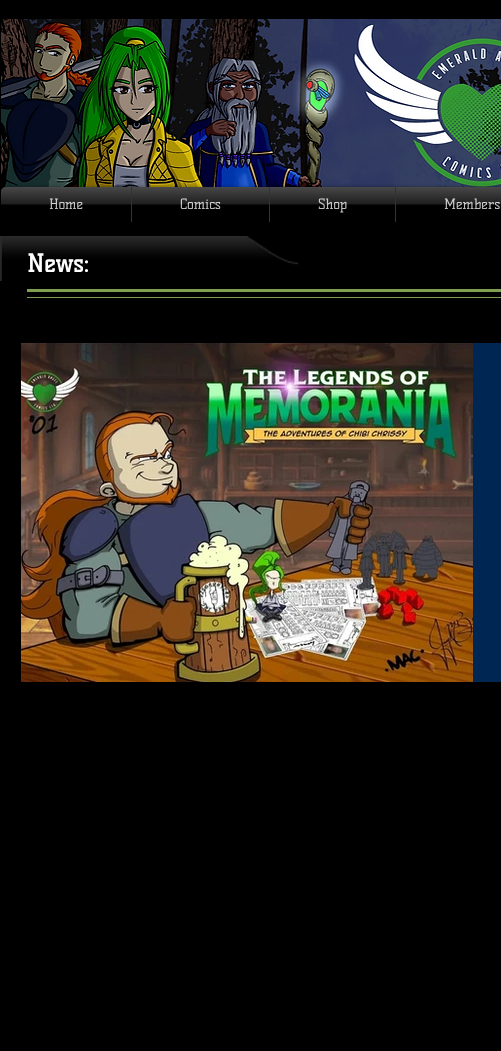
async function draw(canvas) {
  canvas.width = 501;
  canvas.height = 1051;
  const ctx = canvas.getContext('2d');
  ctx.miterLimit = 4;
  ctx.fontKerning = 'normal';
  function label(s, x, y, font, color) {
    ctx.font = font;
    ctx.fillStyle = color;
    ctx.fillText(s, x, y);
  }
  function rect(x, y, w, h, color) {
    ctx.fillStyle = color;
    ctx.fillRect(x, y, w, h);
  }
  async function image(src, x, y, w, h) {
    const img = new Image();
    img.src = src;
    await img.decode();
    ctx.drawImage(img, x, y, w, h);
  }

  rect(0, 0, 501, 1051, '#000');
  await image('assets/img1.png', 1, 19, 500, 172);
  ctx.fillStyle = '#00000099';
  ctx.filter = 'blur(2px)';
  ctx.beginPath();
  ctx.roundRect(1, 188, 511, 35, 5);
  ctx.fill();
  ctx.filter = 'none';
  await image('assets/img2.png', 1, 187, 5, 5);
  ctx.fillStyle = '#000';
  ctx.beginPath();
  ctx.roundRect(1, 187, 130, 35, [5, 0, 0, 0]);
  ctx.fill();
  label('Home', 49, 209, '14px Kelly Slab', '#cacaca');
  await image('assets/img3.png', 1, 187, 130, 22);
  rect(132, 187, 137, 4, '#000');
  rect(131, 187, 1, 35, '#333');
  label('Comics', 180, 209, '14px Kelly Slab', '#cacaca');
  await image('assets/img4.png', 132, 187, 137, 22);
  rect(270, 187, 125, 4, '#000');
  rect(269, 187, 1, 35, '#333');
  label('Shop', 318, 209, '14px Kelly Slab', '#cacaca');
  await image('assets/img5.png', 270, 187, 125, 26);
  rect(396, 187, 105, 4, '#000');
  rect(395, 187, 1, 35, '#333');
  label('Members', 444, 209, '14px Kelly Slab', '#cacaca');
  await image('assets/img6.png', 396, 187, 105, 22);
  await image('assets/img7.png', 0, 236, 298, 45);
  label('News:', 27, 272, 'bold 24px Kelly Slab', '#fff');
  rect(27, 289, 474, 3, '#7e9f51');
  rect(27, 297, 474, 1, '#7e9f51');
  await image('assets/img8.png', 21, 343, 452, 339);
  rect(473, 343, 28, 339, '#002754');
}

draw(document.querySelector('canvas'));
